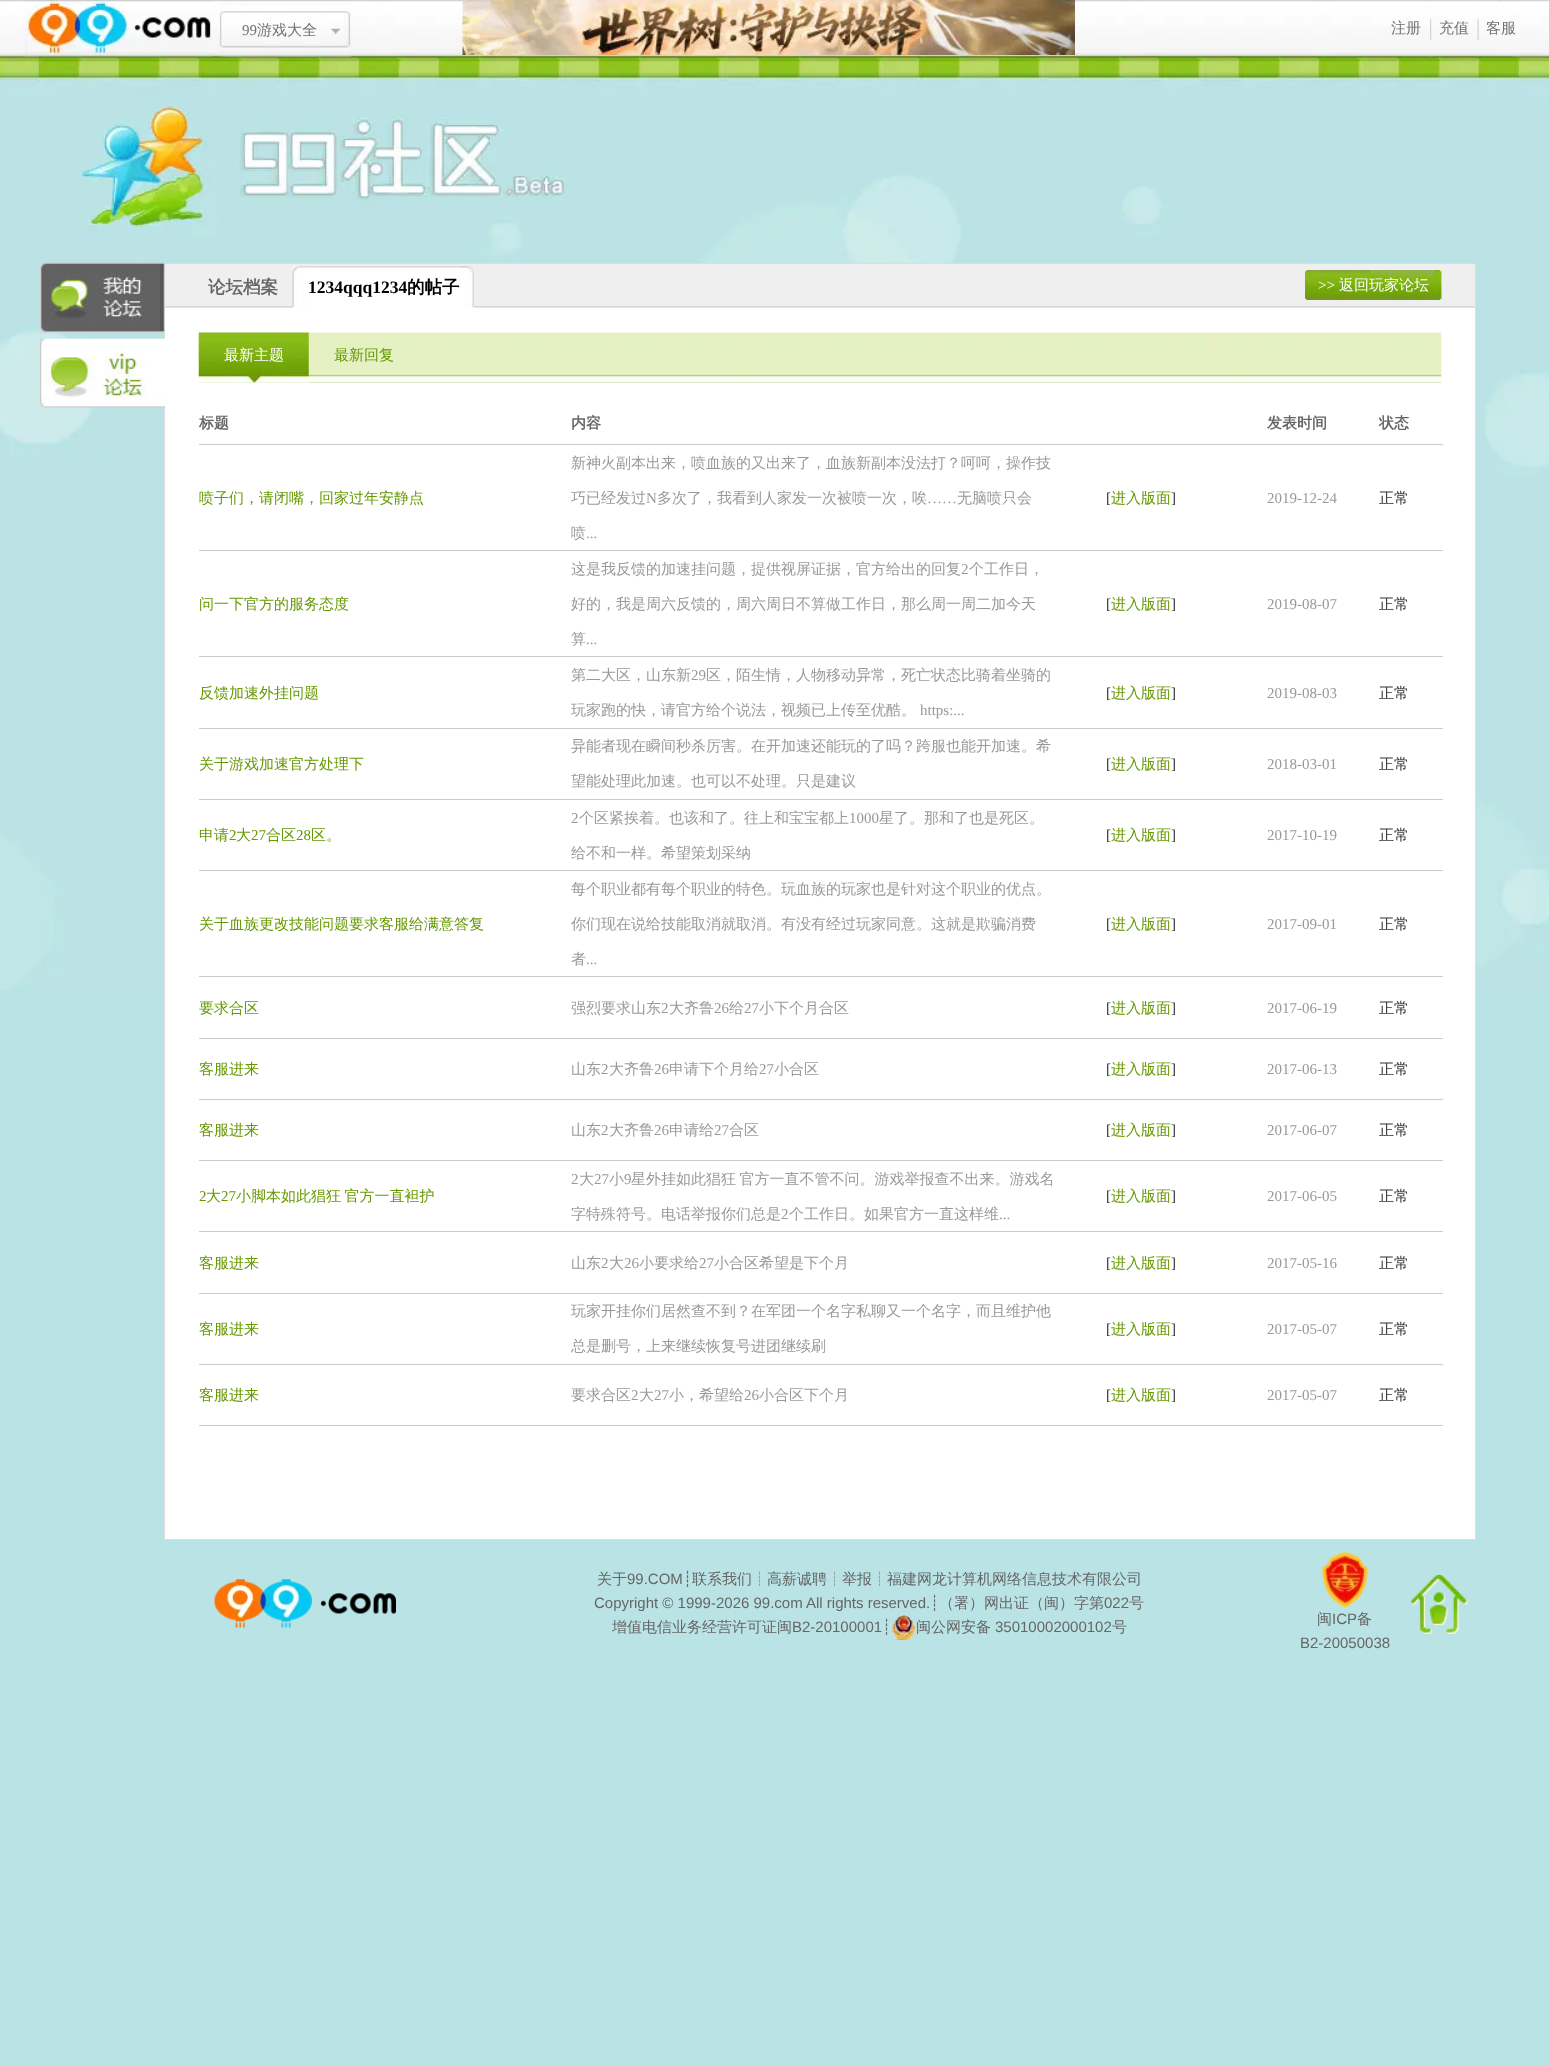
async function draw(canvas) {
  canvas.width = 1549;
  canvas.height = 2066;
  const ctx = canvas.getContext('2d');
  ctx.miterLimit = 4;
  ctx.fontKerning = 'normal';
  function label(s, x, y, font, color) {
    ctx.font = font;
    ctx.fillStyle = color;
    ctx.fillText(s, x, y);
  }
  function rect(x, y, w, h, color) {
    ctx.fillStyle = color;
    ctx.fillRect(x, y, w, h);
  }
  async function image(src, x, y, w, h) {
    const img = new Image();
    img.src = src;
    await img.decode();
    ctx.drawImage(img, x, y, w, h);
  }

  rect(0, 0, 1549, 2066, '#bae3e5');
  await image('assets/img8.png', 0, 56, 1549, 935);
  await image('assets/img9.png', 37, 56, 1476, 205);
  await image('assets/img1.png', 0, 0, 1549, 57);
  await image('assets/img2.png', 25, 0, 188, 57);
  await image('assets/img3.png', 218, 0, 134, 57);
  await image('assets/img4.png', 225, 11, 127, 46);
  label('99', 242, 35, '15px Liberation Serif', '#727272');
  label('游戏大全', 257, 35, '500 15px WenQuanYi Zen Hei', '#727272');
  await image('assets/img5.png', 462, 0, 613, 55);
  label('注册', 1391, 33, '500 15px WenQuanYi Zen Hei', '#727272');
  await image('assets/img6.png', 1430, 0, 2, 57);
  label('充值', 1439, 33, '500 15px WenQuanYi Zen Hei', '#727272');
  await image('assets/img7.png', 1477, 4, 2, 53);
  label('客服', 1486, 33, '500 15px WenQuanYi Zen Hei', '#727272');
  ctx.strokeStyle = '#ddd';
  ctx.strokeRect(164.5, 263.5, 1311, 1276);
  await image('assets/img10.png', 40, 262, 125, 71);
  await image('assets/img11.png', 40, 338, 125, 70);
  rect(165, 308, 1310, 1231, '#fff');
  rect(165, 264, 1310, 44, '#efefef');
  await image('assets/img12.png', 165, 306, 1310, 2);
  label('论坛档案', 208, 293, 'bold 17.5px WenQuanYi Zen Hei', '#666');
  rect(293, 266, 181, 42, '#fff');
  await image('assets/img13.png', 292, 266, 182, 42);
  await image('assets/img14.png', 459, 266, 15, 42);
  label('1234qqq1234', 308, 293, 'bold 17.5px Liberation Serif', '#000');
  label('的帖子', 407, 293, 'bold 17.5px WenQuanYi Zen Hei', '#000');
  await image('assets/img15.png', 1305, 270, 137, 30);
  await image('assets/img16.png', 1435, 270, 7, 30);
  label('>>', 1318, 290, '15px Liberation Serif', '#fff');
  label('返回玩家论坛', 1339, 290, '500 15px WenQuanYi Zen Hei', '#fff');
  await image('assets/img17.png', 198, 332, 1244, 51);
  await image('assets/img18.png', 198, 332, 111, 51);
  label('最新主题', 224, 360, '500 15px WenQuanYi Zen Hei', '#fff');
  label('最新回复', 334, 360, '500 15px WenQuanYi Zen Hei', '#690');
  label('标题', 199, 428, 'bold 15px WenQuanYi Zen Hei', '#666');
  label('内容', 571, 428, 'bold 15px WenQuanYi Zen Hei', '#666');
  label('发表时间', 1267, 428, 'bold 15px WenQuanYi Zen Hei', '#666');
  rect(199, 444, 1244, 1, '#ccc');
  label('状态', 1379, 428, 'bold 15px WenQuanYi Zen Hei', '#666');
  label('喷子们，请闭嘴，回家过年安静点', 199, 503, '500 15px WenQuanYi Zen Hei', '#690');
  label('新神火副本出来，喷血族的又出来了，血族新副本没法打？呵呵，操作技', 571, 468, '500 15px WenQuanYi Zen Hei', '#999');
  label('巧已经发过', 571, 503, '500 15px WenQuanYi Zen Hei', '#999');
  label('N', 646, 503, '15px Liberation Serif', '#999');
  label('多次了，我看到人家发一次被喷一次，唉', 657, 503, '500 15px WenQuanYi Zen Hei', '#999');
  label('……', 927, 503, '15px Liberation Serif', '#999');
  label('无脑喷只会', 957, 503, '500 15px WenQuanYi Zen Hei', '#999');
  label('喷', 571, 538, '500 15px WenQuanYi Zen Hei', '#999');
  label('...', 586, 538, '15px Liberation Serif', '#999');
  label('[', 1106, 503, '15px Liberation Serif', '#333');
  label('进入版面', 1111, 503, '500 15px WenQuanYi Zen Hei', '#690');
  label(']', 1171, 503, '15px Liberation Serif', '#333');
  label('2019-12-24', 1267, 503, '15px Liberation Serif', '#999');
  rect(199, 550, 1244, 1, '#ccc');
  label('正常', 1379, 503, '500 15px WenQuanYi Zen Hei', '#333');
  label('问一下官方的服务态度', 199, 609, '500 15px WenQuanYi Zen Hei', '#690');
  label('这是我反馈的加速挂问题，提供视屏证据，官方给出的回复', 571, 574, '500 15px WenQuanYi Zen Hei', '#999');
  label('2', 961, 574, '15px Liberation Serif', '#999');
  label('个工作日，', 969, 574, '500 15px WenQuanYi Zen Hei', '#999');
  label('好的，我是周六反馈的，周六周日不算做工作日，那么周一周二加今天', 571, 609, '500 15px WenQuanYi Zen Hei', '#999');
  label('算', 571, 644, '500 15px WenQuanYi Zen Hei', '#999');
  label('...', 586, 644, '15px Liberation Serif', '#999');
  label('[', 1106, 609, '15px Liberation Serif', '#333');
  label('进入版面', 1111, 609, '500 15px WenQuanYi Zen Hei', '#690');
  label(']', 1171, 609, '15px Liberation Serif', '#333');
  label('2019-08-07', 1267, 609, '15px Liberation Serif', '#999');
  rect(199, 656, 1244, 1, '#ccc');
  label('正常', 1379, 609, '500 15px WenQuanYi Zen Hei', '#333');
  label('反馈加速外挂问题', 199, 698, '500 15px WenQuanYi Zen Hei', '#690');
  label('第二大区，山东新', 571, 680, '500 15px WenQuanYi Zen Hei', '#999');
  label('29', 691, 680, '15px Liberation Serif', '#999');
  label('区，陌生情，人物移动异常，死亡状态比骑着坐骑的', 706, 680, '500 15px WenQuanYi Zen Hei', '#999');
  label('玩家跑的快，请官方给个说法，视频已上传至优酷。', 571, 715, '500 15px WenQuanYi Zen Hei', '#999');
  label('https:...', 920, 715, '15px Liberation Serif', '#999');
  label('[', 1106, 698, '15px Liberation Serif', '#333');
  label('进入版面', 1111, 698, '500 15px WenQuanYi Zen Hei', '#690');
  label(']', 1171, 698, '15px Liberation Serif', '#333');
  label('2019-08-03', 1267, 698, '15px Liberation Serif', '#999');
  rect(199, 728, 1244, 1, '#ccc');
  label('正常', 1379, 698, '500 15px WenQuanYi Zen Hei', '#333');
  label('关于游戏加速官方处理下', 199, 769, '500 15px WenQuanYi Zen Hei', '#690');
  label('异能者现在瞬间秒杀厉害。在开加速还能玩的了吗？跨服也能开加速。希', 571, 751, '500 15px WenQuanYi Zen Hei', '#999');
  label('望能处理此加速。也可以不处理。只是建议', 571, 786, '500 15px WenQuanYi Zen Hei', '#999');
  label('[', 1106, 769, '15px Liberation Serif', '#333');
  label('进入版面', 1111, 769, '500 15px WenQuanYi Zen Hei', '#690');
  label(']', 1171, 769, '15px Liberation Serif', '#333');
  label('2018-03-01', 1267, 769, '15px Liberation Serif', '#999');
  rect(199, 799, 1244, 1, '#ccc');
  label('正常', 1379, 769, '500 15px WenQuanYi Zen Hei', '#333');
  label('申请', 199, 840, '500 15px WenQuanYi Zen Hei', '#690');
  label('2', 229, 840, '15px Liberation Serif', '#690');
  label('大', 236, 840, '500 15px WenQuanYi Zen Hei', '#690');
  label('27', 251, 840, '15px Liberation Serif', '#690');
  label('合区', 266, 840, '500 15px WenQuanYi Zen Hei', '#690');
  label('28', 296, 840, '15px Liberation Serif', '#690');
  label('区。', 311, 840, '500 15px WenQuanYi Zen Hei', '#690');
  label('2', 571, 823, '15px Liberation Serif', '#999');
  label('个区紧挨着。也该和了。往上和宝宝都上', 579, 823, '500 15px WenQuanYi Zen Hei', '#999');
  label('1000', 849, 823, '15px Liberation Serif', '#999');
  label('星了。那和了也是死区。', 879, 823, '500 15px WenQuanYi Zen Hei', '#999');
  label('给不和一样。希望策划采纳', 571, 858, '500 15px WenQuanYi Zen Hei', '#999');
  label('[', 1106, 840, '15px Liberation Serif', '#333');
  label('进入版面', 1111, 840, '500 15px WenQuanYi Zen Hei', '#690');
  label(']', 1171, 840, '15px Liberation Serif', '#333');
  label('2017-10-19', 1267, 840, '15px Liberation Serif', '#999');
  rect(199, 870, 1244, 1, '#ccc');
  label('正常', 1379, 840, '500 15px WenQuanYi Zen Hei', '#333');
  label('关于血族更改技能问题要求客服给满意答复', 199, 929, '500 15px WenQuanYi Zen Hei', '#690');
  label('每个职业都有每个职业的特色。玩血族的玩家也是针对这个职业的优点。', 571, 894, '500 15px WenQuanYi Zen Hei', '#999');
  label('你们现在说给技能取消就取消。有没有经过玩家同意。这就是欺骗消费', 571, 929, '500 15px WenQuanYi Zen Hei', '#999');
  label('者', 571, 964, '500 15px WenQuanYi Zen Hei', '#999');
  label('...', 586, 964, '15px Liberation Serif', '#999');
  label('[', 1106, 929, '15px Liberation Serif', '#333');
  label('进入版面', 1111, 929, '500 15px WenQuanYi Zen Hei', '#690');
  label(']', 1171, 929, '15px Liberation Serif', '#333');
  label('2017-09-01', 1267, 929, '15px Liberation Serif', '#999');
  rect(199, 976, 1244, 1, '#ccc');
  label('正常', 1379, 929, '500 15px WenQuanYi Zen Hei', '#333');
  label('要求合区', 199, 1013, '500 15px WenQuanYi Zen Hei', '#690');
  label('强烈要求山东', 571, 1013, '500 15px WenQuanYi Zen Hei', '#999');
  label('2', 661, 1013, '15px Liberation Serif', '#999');
  label('大齐鲁', 669, 1013, '500 15px WenQuanYi Zen Hei', '#999');
  label('26', 714, 1013, '15px Liberation Serif', '#999');
  label('给', 729, 1013, '500 15px WenQuanYi Zen Hei', '#999');
  label('27', 744, 1013, '15px Liberation Serif', '#999');
  label('小下个月合区', 759, 1013, '500 15px WenQuanYi Zen Hei', '#999');
  label('[', 1106, 1013, '15px Liberation Serif', '#333');
  label('进入版面', 1111, 1013, '500 15px WenQuanYi Zen Hei', '#690');
  label(']', 1171, 1013, '15px Liberation Serif', '#333');
  label('2017-06-19', 1267, 1013, '15px Liberation Serif', '#999');
  rect(199, 1038, 1244, 1, '#ccc');
  label('正常', 1379, 1013, '500 15px WenQuanYi Zen Hei', '#333');
  label('客服进来', 199, 1074, '500 15px WenQuanYi Zen Hei', '#690');
  label('山东', 571, 1074, '500 15px WenQuanYi Zen Hei', '#999');
  label('2', 601, 1074, '15px Liberation Serif', '#999');
  label('大齐鲁', 609, 1074, '500 15px WenQuanYi Zen Hei', '#999');
  label('26', 654, 1074, '15px Liberation Serif', '#999');
  label('申请下个月给', 669, 1074, '500 15px WenQuanYi Zen Hei', '#999');
  label('27', 759, 1074, '15px Liberation Serif', '#999');
  label('小合区', 774, 1074, '500 15px WenQuanYi Zen Hei', '#999');
  label('[', 1106, 1074, '15px Liberation Serif', '#333');
  label('进入版面', 1111, 1074, '500 15px WenQuanYi Zen Hei', '#690');
  label(']', 1171, 1074, '15px Liberation Serif', '#333');
  label('2017-06-13', 1267, 1074, '15px Liberation Serif', '#999');
  rect(199, 1099, 1244, 1, '#ccc');
  label('正常', 1379, 1074, '500 15px WenQuanYi Zen Hei', '#333');
  label('客服进来', 199, 1135, '500 15px WenQuanYi Zen Hei', '#690');
  label('山东', 571, 1135, '500 15px WenQuanYi Zen Hei', '#999');
  label('2', 601, 1135, '15px Liberation Serif', '#999');
  label('大齐鲁', 609, 1135, '500 15px WenQuanYi Zen Hei', '#999');
  label('26', 654, 1135, '15px Liberation Serif', '#999');
  label('申请给', 669, 1135, '500 15px WenQuanYi Zen Hei', '#999');
  label('27', 714, 1135, '15px Liberation Serif', '#999');
  label('合区', 729, 1135, '500 15px WenQuanYi Zen Hei', '#999');
  label('[', 1106, 1135, '15px Liberation Serif', '#333');
  label('进入版面', 1111, 1135, '500 15px WenQuanYi Zen Hei', '#690');
  label(']', 1171, 1135, '15px Liberation Serif', '#333');
  label('2017-06-07', 1267, 1135, '15px Liberation Serif', '#999');
  rect(199, 1160, 1244, 1, '#ccc');
  label('正常', 1379, 1135, '500 15px WenQuanYi Zen Hei', '#333');
  label('2', 199, 1201, '15px Liberation Serif', '#690');
  label('大', 206, 1201, '500 15px WenQuanYi Zen Hei', '#690');
  label('27', 221, 1201, '15px Liberation Serif', '#690');
  ctx.wordSpacing = '-1px';
  label('小脚本如此猖狂 官方一直袒护', 236, 1201, '500 15px WenQuanYi Zen Hei', '#690');
  ctx.wordSpacing = '0px';
  label('2', 571, 1184, '15px Liberation Serif', '#999');
  label('大', 579, 1184, '500 15px WenQuanYi Zen Hei', '#999');
  label('27', 594, 1184, '15px Liberation Serif', '#999');
  label('小', 609, 1184, '500 15px WenQuanYi Zen Hei', '#999');
  label('9', 624, 1184, '15px Liberation Serif', '#999');
  ctx.wordSpacing = '-1px';
  label('星外挂如此猖狂 官方一直不管不问。游戏举报查不出来。游戏名', 631, 1184, '500 15px WenQuanYi Zen Hei', '#999');
  ctx.wordSpacing = '0px';
  label('字特殊符号。电话举报你们总是', 571, 1219, '500 15px WenQuanYi Zen Hei', '#999');
  label('2', 781, 1219, '15px Liberation Serif', '#999');
  label('个工作日。如果官方一直这样维', 789, 1219, '500 15px WenQuanYi Zen Hei', '#999');
  label('...', 999, 1219, '15px Liberation Serif', '#999');
  label('[', 1106, 1201, '15px Liberation Serif', '#333');
  label('进入版面', 1111, 1201, '500 15px WenQuanYi Zen Hei', '#690');
  label(']', 1171, 1201, '15px Liberation Serif', '#333');
  label('2017-06-05', 1267, 1201, '15px Liberation Serif', '#999');
  rect(199, 1231, 1244, 1, '#ccc');
  label('正常', 1379, 1201, '500 15px WenQuanYi Zen Hei', '#333');
  label('客服进来', 199, 1268, '500 15px WenQuanYi Zen Hei', '#690');
  label('山东', 571, 1268, '500 15px WenQuanYi Zen Hei', '#999');
  label('2', 601, 1268, '15px Liberation Serif', '#999');
  label('大', 609, 1268, '500 15px WenQuanYi Zen Hei', '#999');
  label('26', 624, 1268, '15px Liberation Serif', '#999');
  label('小要求给', 639, 1268, '500 15px WenQuanYi Zen Hei', '#999');
  label('27', 699, 1268, '15px Liberation Serif', '#999');
  label('小合区希望是下个月', 714, 1268, '500 15px WenQuanYi Zen Hei', '#999');
  label('[', 1106, 1268, '15px Liberation Serif', '#333');
  label('进入版面', 1111, 1268, '500 15px WenQuanYi Zen Hei', '#690');
  label(']', 1171, 1268, '15px Liberation Serif', '#333');
  label('2017-05-16', 1267, 1268, '15px Liberation Serif', '#999');
  rect(199, 1293, 1244, 1, '#ccc');
  label('正常', 1379, 1268, '500 15px WenQuanYi Zen Hei', '#333');
  label('客服进来', 199, 1334, '500 15px WenQuanYi Zen Hei', '#690');
  label('玩家开挂你们居然查不到？在军团一个名字私聊又一个名字，而且维护他', 571, 1316, '500 15px WenQuanYi Zen Hei', '#999');
  label('总是删号，上来继续恢复号进团继续刷', 571, 1351, '500 15px WenQuanYi Zen Hei', '#999');
  label('[', 1106, 1334, '15px Liberation Serif', '#333');
  label('进入版面', 1111, 1334, '500 15px WenQuanYi Zen Hei', '#690');
  label(']', 1171, 1334, '15px Liberation Serif', '#333');
  label('2017-05-07', 1267, 1334, '15px Liberation Serif', '#999');
  rect(199, 1364, 1244, 1, '#ccc');
  label('正常', 1379, 1334, '500 15px WenQuanYi Zen Hei', '#333');
  label('客服进来', 199, 1400, '500 15px WenQuanYi Zen Hei', '#690');
  label('要求合区', 571, 1400, '500 15px WenQuanYi Zen Hei', '#999');
  label('2', 631, 1400, '15px Liberation Serif', '#999');
  label('大', 639, 1400, '500 15px WenQuanYi Zen Hei', '#999');
  label('27', 654, 1400, '15px Liberation Serif', '#999');
  label('小，希望给', 669, 1400, '500 15px WenQuanYi Zen Hei', '#999');
  label('26', 744, 1400, '15px Liberation Serif', '#999');
  label('小合区下个月', 759, 1400, '500 15px WenQuanYi Zen Hei', '#999');
  label('[', 1106, 1400, '15px Liberation Serif', '#333');
  label('进入版面', 1111, 1400, '500 15px WenQuanYi Zen Hei', '#690');
  label(']', 1171, 1400, '15px Liberation Serif', '#333');
  label('2017-05-07', 1267, 1400, '15px Liberation Serif', '#999');
  rect(199, 1425, 1244, 1, '#ccc');
  label('正常', 1379, 1400, '500 15px WenQuanYi Zen Hei', '#333');
  await image('assets/img19.png', 214, 1579, 182, 49);
  label('关于', 597, 1584, '500 15px WenQuanYi Zen Hei', '#666');
  label('99.COM', 627, 1584, '15px Liberation Sans', '#666');
  label('┊', 683, 1584, '15px DejaVu Sans', '#666');
  label('联系我们┊高薪诚聘┊举报┊福建网龙计算机网络信息技术有限公司', 692, 1584, '500 15px WenQuanYi Zen Hei', '#666');
  label('Copyright © 1999-2026 99.com', 594, 1608, '15px Liberation Sans', '#666');
  label('All rights reserved.', 806, 1608, '15px Liberation Sans', '#666');
  label('┊', 930, 1608, '15px DejaVu Sans', '#666');
  label('（署）网出证（闽）字第', 939, 1608, '500 15px WenQuanYi Zen Hei', '#666');
  label('022', 1104, 1608, '15px Liberation Sans', '#666');
  label('号', 1129, 1608, '500 15px WenQuanYi Zen Hei', '#666');
  label('增值电信业务经营许可证闽', 612, 1632, '500 15px WenQuanYi Zen Hei', '#666');
  label('B2-20100001', 792, 1632, '15px Liberation Sans', '#666');
  label('┊', 882, 1632, '15px DejaVu Sans', '#666');
  await image('assets/img20.png', 892, 1615, 24, 25);
  label('闽公网安备', 916, 1632, '500 15px WenQuanYi Zen Hei', '#666');
  label('35010002000102', 995, 1632, '15px Liberation Sans', '#666');
  label('号', 1112, 1632, '500 15px WenQuanYi Zen Hei', '#666');
  await image('assets/img21.png', 1322, 1552, 46, 56);
  label('闽', 1317, 1624, '500 15px WenQuanYi Zen Hei', '#666');
  label('ICP', 1332, 1624, '15px Liberation Sans', '#666');
  label('备', 1357, 1624, '500 15px WenQuanYi Zen Hei', '#666');
  label('B2-20050038', 1300, 1648, '15px Liberation Sans', '#666');
  await image('assets/img22.png', 1411, 1575, 57, 59);
}

draw(document.querySelector('canvas'));
